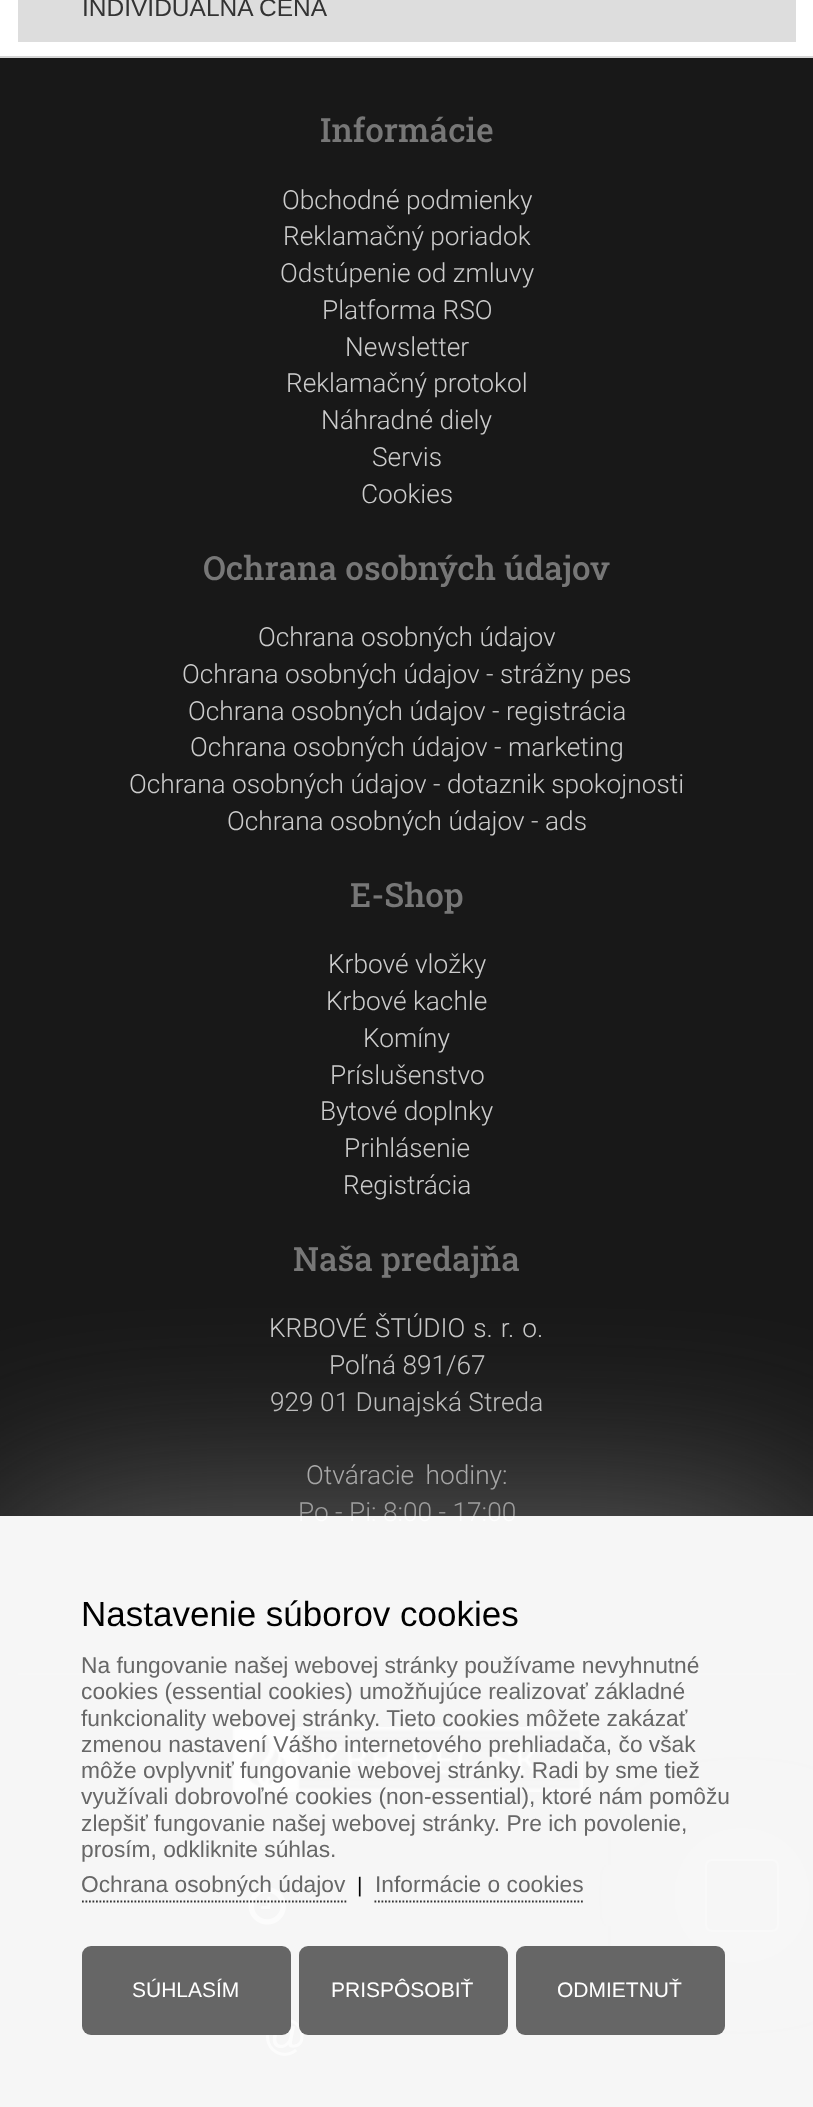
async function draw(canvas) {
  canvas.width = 813;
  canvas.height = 2107;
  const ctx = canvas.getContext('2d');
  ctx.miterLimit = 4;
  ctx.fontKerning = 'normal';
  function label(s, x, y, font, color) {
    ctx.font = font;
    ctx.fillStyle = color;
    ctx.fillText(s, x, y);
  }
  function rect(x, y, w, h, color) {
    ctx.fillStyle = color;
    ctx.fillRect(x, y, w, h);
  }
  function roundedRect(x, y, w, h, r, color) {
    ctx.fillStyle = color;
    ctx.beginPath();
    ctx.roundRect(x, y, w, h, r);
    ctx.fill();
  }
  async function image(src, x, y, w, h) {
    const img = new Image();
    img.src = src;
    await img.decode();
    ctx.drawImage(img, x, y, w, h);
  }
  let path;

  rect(0, 0, 813, 2107, '#fff');
  rect(18, 0, 778, 42, '#ddd');
  label('INDIVIDUÁLNA CENA', 82, 16, '24.5px Liberation Sans', '#333');
  rect(0, 58, 813, 2049, '#181818');
  rect(0, 56, 813, 2, '#d5d5d5');
  label('Informácie', 320, 142, '500 33.25px Roboto Slab', '#777');
  label('Obchodné podmienky', 282, 209, '300 26.25px Roboto', '#ccc');
  label('Reklamačný poriadok', 283, 245, '300 26.25px Roboto', '#ccc');
  label('Odstúpenie od zmluvy', 280, 282, '300 26.25px Roboto', '#ccc');
  label('Platforma RSO', 322, 319, '300 26.25px Roboto', '#ccc');
  label('Newsletter', 345, 356, '300 26.25px Roboto', '#ccc');
  label('Reklamačný protokol', 286, 392, '300 26.25px Roboto', '#ccc');
  label('Náhradné diely', 321, 429, '300 26.25px Roboto', '#ccc');
  label('Servis', 372, 466, '300 26.25px Roboto', '#ccc');
  label('Cookies', 361, 503, '300 26.25px Roboto', '#ccc');
  label('Ochrana osobných údajov', 203, 580, '500 33.25px Roboto Slab', '#777');
  label('Ochrana osobných údajov', 258, 646, '300 26.25px Roboto', '#ccc');
  label('Ochrana osobných údajov - strážny pes', 182, 683, '300 26.25px Roboto', '#ccc');
  label('Ochrana osobných údajov - registrácia', 188, 720, '300 26.25px Roboto', '#ccc');
  label('Ochrana osobných údajov - marketing', 190, 756, '300 26.25px Roboto', '#ccc');
  label('Ochrana osobných údajov - dotaznik spokojnosti', 129, 793, '300 26.25px Roboto', '#ccc');
  label('Ochrana osobných údajov - ads', 227, 830, '300 26.25px Roboto', '#ccc');
  label('E-Shop', 350, 907, '500 33.25px Roboto Slab', '#777');
  label('Krbové vložky', 328, 973, '300 26.25px Roboto', '#ccc');
  label('Krbové kachle', 326, 1010, '300 26.25px Roboto', '#ccc');
  label('Komíny', 363, 1047, '300 26.25px Roboto', '#ccc');
  label('Príslušenstvo', 330, 1084, '300 26.25px Roboto', '#ccc');
  label('Bytové doplnky', 320, 1120, '300 26.25px Roboto', '#ccc');
  label('Prihlásenie', 344, 1157, '300 26.25px Roboto', '#ccc');
  label('Registrácia', 343, 1194, '300 26.25px Roboto', '#ccc');
  label('Naša predajňa', 293, 1271, '500 33.25px Roboto Slab', '#777');
  ctx.wordSpacing = '1.5px';
  label('KRBOVÉ ŠTÚDIO s. r. o.', 269, 1337, '300 26.25px Roboto', '#ccc');
  ctx.wordSpacing = '0px';
  label('Poľná 891/67', 329, 1374, '300 26.25px Roboto', '#ccc');
  label('929 01 Dunajská Streda', 270, 1411, '300 26.25px Roboto', '#ccc');
  ctx.wordSpacing = '5px';
  label('Otváracie hodiny', 306, 1484, '300 26.25px Roboto', '#ccc');
  ctx.wordSpacing = '0px';
  label(':', 502, 1484, '300 26.25px Roboto', '#ccc');
  label('Po - Pi: 8:00 - 17:00', 298, 1521, '300 26.25px Roboto', '#ccc');
  rect(18, 1673, 778, 2, '#444');
  await image('assets/img1.png', 232, 1727, 351, 65);
  await image('assets/img2.png', 248, 1887, 38, 38);
  await image('assets/img3.png', 266, 2019, 38, 37);
  ctx.fillStyle = '#bababa';
  ctx.filter = 'blur(44px)';
  ctx.beginPath();
  ctx.roundRect(705, 1859, 74, 73, 7);
  ctx.fill();
  ctx.filter = 'none';
  ctx.fillStyle = '#2b2b2b';
  ctx.beginPath();
  ctx.roundRect(706, 1860, 72, 71, 6);
  ctx.fill();
  ctx.strokeStyle = '#666';
  ctx.lineWidth = 2;
  ctx.stroke();
  ctx.save();
  ctx.beginPath();
  ctx.rect(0, 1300, 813, 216);
  ctx.clip();
  ctx.fillStyle = '#666';
  ctx.filter = 'blur(105px)';
  ctx.beginPath();
  ctx.rect(0, 1516, 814, 591);
  ctx.fill();
  ctx.filter = 'none';
  ctx.restore();
  rect(0, 1516, 813, 591, '#fffffff5');
  label('Nastavenie súborov cookies', 81, 1626, '35px Liberation Sans', '#000');
  label('Na fungovanie našej webovej stránky používame nevyhnutné', 81, 1673, '22.75px Liberation Sans', '#676767');
  label('cookies (essential cookies) umožňujúce realizovať základné', 81, 1699, '22.75px Liberation Sans', '#676767');
  label('funkcionality webovej stránky. Tieto cookies môžete zakázať', 81, 1726, '22.75px Liberation Sans', '#676767');
  label('zmenou nastavení Vášho internetového prehliadača, čo však', 81, 1752, '22.75px Liberation Sans', '#676767');
  label('môže ovplyvniť fungovanie webovej stránky. Radi by sme tiež', 81, 1778, '22.75px Liberation Sans', '#676767');
  label('využívali dobrovoľné cookies (non-essential), ktoré nám pomôžu', 81, 1804, '22.75px Liberation Sans', '#676767');
  label('zlepšiť fungovanie našej webovej stránky. Pre ich povolenie,', 81, 1831, '22.75px Liberation Sans', '#676767');
  label('prosím, odkliknite súhlas.', 81, 1857, '22.75px Liberation Sans', '#676767');
  path = new Path2D('M82 1901.5H346.5');
  ctx.strokeStyle = '#333';
  ctx.lineWidth = 1.8;
  ctx.setLineDash([1.75, 1.75]);
  ctx.stroke(path);
  label('Ochrana osobných údajov', 81, 1892, '22.75px Liberation Sans', '#676767');
  label('|', 357, 1892, '21px Liberation Sans', '#000');
  path = new Path2D('M374.5 1901.5H583');
  ctx.stroke(path);
  label('Informácie o cookies', 375, 1892, '22.75px Liberation Sans', '#676767');
  roundedRect(82, 1946, 209, 89, 9, '#666');
  label('SÚHLASÍM', 132, 1997, '21px Liberation Sans', '#fff');
  roundedRect(299, 1946, 209, 89, 9, '#666');
  label('PRISPÔSOBIŤ', 331, 1997, '21px Liberation Sans', '#fff');
  roundedRect(516, 1946, 209, 89, 9, '#666');
  label('ODMIETNUŤ', 557, 1997, '21px Liberation Sans', '#fff');
}

draw(document.querySelector('canvas'));
